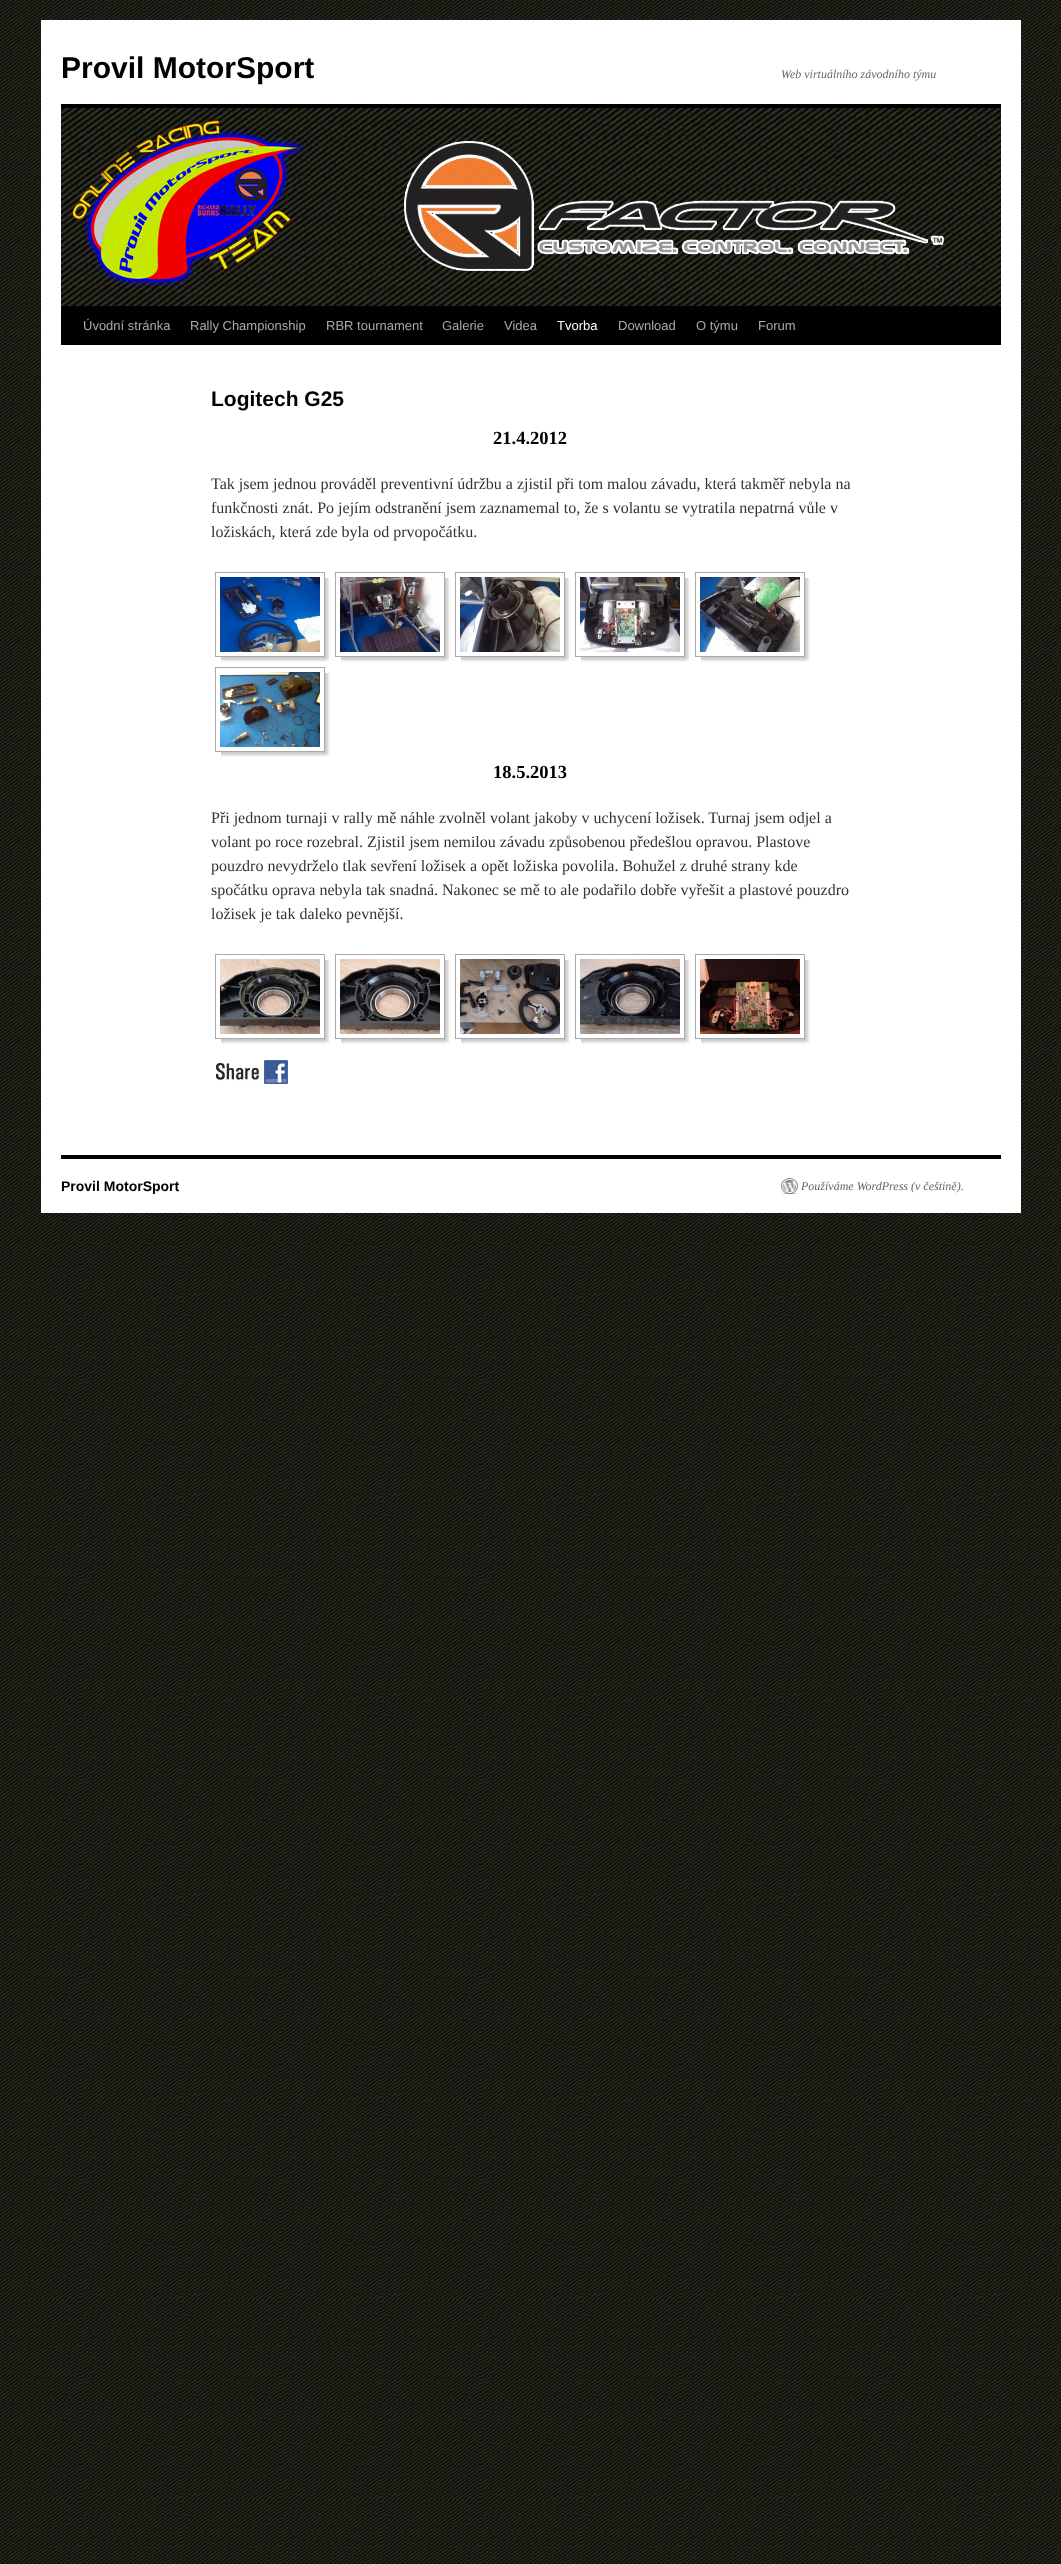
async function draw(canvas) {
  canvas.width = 1061;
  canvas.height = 2564;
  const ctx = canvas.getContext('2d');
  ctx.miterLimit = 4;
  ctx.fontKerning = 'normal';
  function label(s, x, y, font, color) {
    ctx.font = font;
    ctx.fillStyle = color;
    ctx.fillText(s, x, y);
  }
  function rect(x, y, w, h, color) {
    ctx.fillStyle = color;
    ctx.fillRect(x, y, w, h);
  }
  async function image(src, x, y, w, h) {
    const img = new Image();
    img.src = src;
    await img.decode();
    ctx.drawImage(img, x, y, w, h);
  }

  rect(0, 0, 1061, 2564, '#fff');
  await image('assets/img1.png', 0, 0, 1061, 2564);
  rect(41, 20, 980, 1193, '#fff');
  label('Provil MotorSport', 61, 78, 'bold 30px Liberation Sans', '#000');
  label('Web virtuálního závodního týmu', 781, 78, 'italic 12px Liberation Serif', '#666');
  rect(61, 104, 940, 4, '#000');
  rect(61, 306, 940, 39, '#000');
  await image('assets/img2.png', 61, 108, 940, 198);
  label('Úvodní stránka', 83, 330, '13px Liberation Sans', '#aaa');
  label('Rally Championship', 190, 330, '13px Liberation Sans', '#aaa');
  label('RBR tournament', 326, 330, '13px Liberation Sans', '#aaa');
  label('Galerie', 442, 330, '13px Liberation Sans', '#aaa');
  label('Videa', 504, 330, '13px Liberation Sans', '#aaa');
  label('Tvorba', 557, 330, '13px Liberation Sans', '#fff');
  label('Download', 618, 330, '13px Liberation Sans', '#aaa');
  label('O týmu', 696, 330, '13px Liberation Sans', '#aaa');
  label('Forum', 758, 330, '13px Liberation Sans', '#aaa');
  label('Logitech G25', 211, 406, 'bold 21px Liberation Sans', '#000');
  label('21.4.2012', 493, 444, 'bold 18.5px Liberation Serif', '#000');
  label('Tak jsem jednou prováděl preventivní údržbu a zjistil při tom malou závadu, která takměř nebyla na', 211, 489, '16px Liberation Serif', '#333');
  label('funkčnosti znát. Po jejím odstranění jsem zaznamemal to, že s volantu se vytratila nepatrná vůle v', 211, 513, '16px Liberation Serif', '#333');
  label('ložiskách, která zde byla od prvopočátku.', 211, 537, '16px Liberation Serif', '#333');
  await image('assets/img3.png', 221, 578, 109, 84);
  ctx.strokeStyle = '#a9a9a9';
  ctx.strokeRect(215.5, 572.5, 109, 84);
  await image('assets/img4.png', 220, 577, 100, 75);
  await image('assets/img3.png', 341, 578, 109, 84);
  ctx.strokeRect(335.5, 572.5, 109, 84);
  await image('assets/img5.png', 340, 577, 100, 75);
  await image('assets/img3.png', 461, 578, 109, 84);
  ctx.strokeRect(455.5, 572.5, 109, 84);
  await image('assets/img6.png', 460, 577, 100, 75);
  await image('assets/img3.png', 581, 578, 109, 84);
  ctx.strokeRect(575.5, 572.5, 109, 84);
  await image('assets/img7.png', 580, 577, 100, 75);
  await image('assets/img3.png', 701, 578, 109, 84);
  ctx.strokeRect(695.5, 572.5, 109, 84);
  await image('assets/img8.png', 700, 577, 100, 75);
  await image('assets/img3.png', 221, 673, 109, 84);
  ctx.strokeRect(215.5, 667.5, 109, 84);
  await image('assets/img9.png', 220, 672, 100, 75);
  label('18.5.2013', 493, 778, 'bold 18.5px Liberation Serif', '#000');
  label('Při jednom turnaji v rally mě náhle zvolněl volant jakoby v uchycení ložisek. Turnaj jsem odjel a', 211, 823, '16px Liberation Serif', '#333');
  label('volant po roce rozebral. Zjistil jsem nemilou závadu způsobenou předešlou opravou. Plastove', 211, 847, '16px Liberation Serif', '#333');
  label('pouzdro nevydrželo tlak sevření ložisek a opět ložiska povolila. Bohužel z druhé strany kde', 211, 871, '16px Liberation Serif', '#333');
  label('spočátku oprava nebyla tak snadná. Nakonec se mě to ale podařilo dobře vyřešit a plastové pouzdro', 211, 895, '16px Liberation Serif', '#333');
  label('ložisek je tak daleko pevnější.', 211, 919, '16px Liberation Serif', '#333');
  await image('assets/img3.png', 221, 960, 109, 84);
  ctx.strokeRect(215.5, 954.5, 109, 84);
  await image('assets/img10.png', 220, 959, 100, 75);
  await image('assets/img3.png', 341, 960, 109, 84);
  ctx.strokeRect(335.5, 954.5, 109, 84);
  await image('assets/img11.png', 340, 959, 100, 75);
  await image('assets/img3.png', 461, 960, 109, 84);
  ctx.strokeRect(455.5, 954.5, 109, 84);
  await image('assets/img12.png', 460, 959, 100, 75);
  await image('assets/img3.png', 581, 960, 109, 84);
  ctx.strokeRect(575.5, 954.5, 109, 84);
  await image('assets/img13.png', 580, 959, 100, 75);
  await image('assets/img3.png', 701, 960, 109, 84);
  ctx.strokeRect(695.5, 954.5, 109, 84);
  await image('assets/img14.png', 700, 959, 100, 75);
  await image('assets/img15.png', 216, 1063, 43, 18);
  await image('assets/img16.png', 264, 1060, 24, 24);
  rect(61, 1155, 940, 4, '#000');
  label('Provil MotorSport', 61, 1191, 'bold 14px Liberation Sans', '#000');
  await image('assets/img17.png', 781, 1178, 17, 16);
  label('Používáme WordPress (v češtině).', 801, 1190, 'italic 12px Liberation Serif', '#666');
}

draw(document.querySelector('canvas'));
